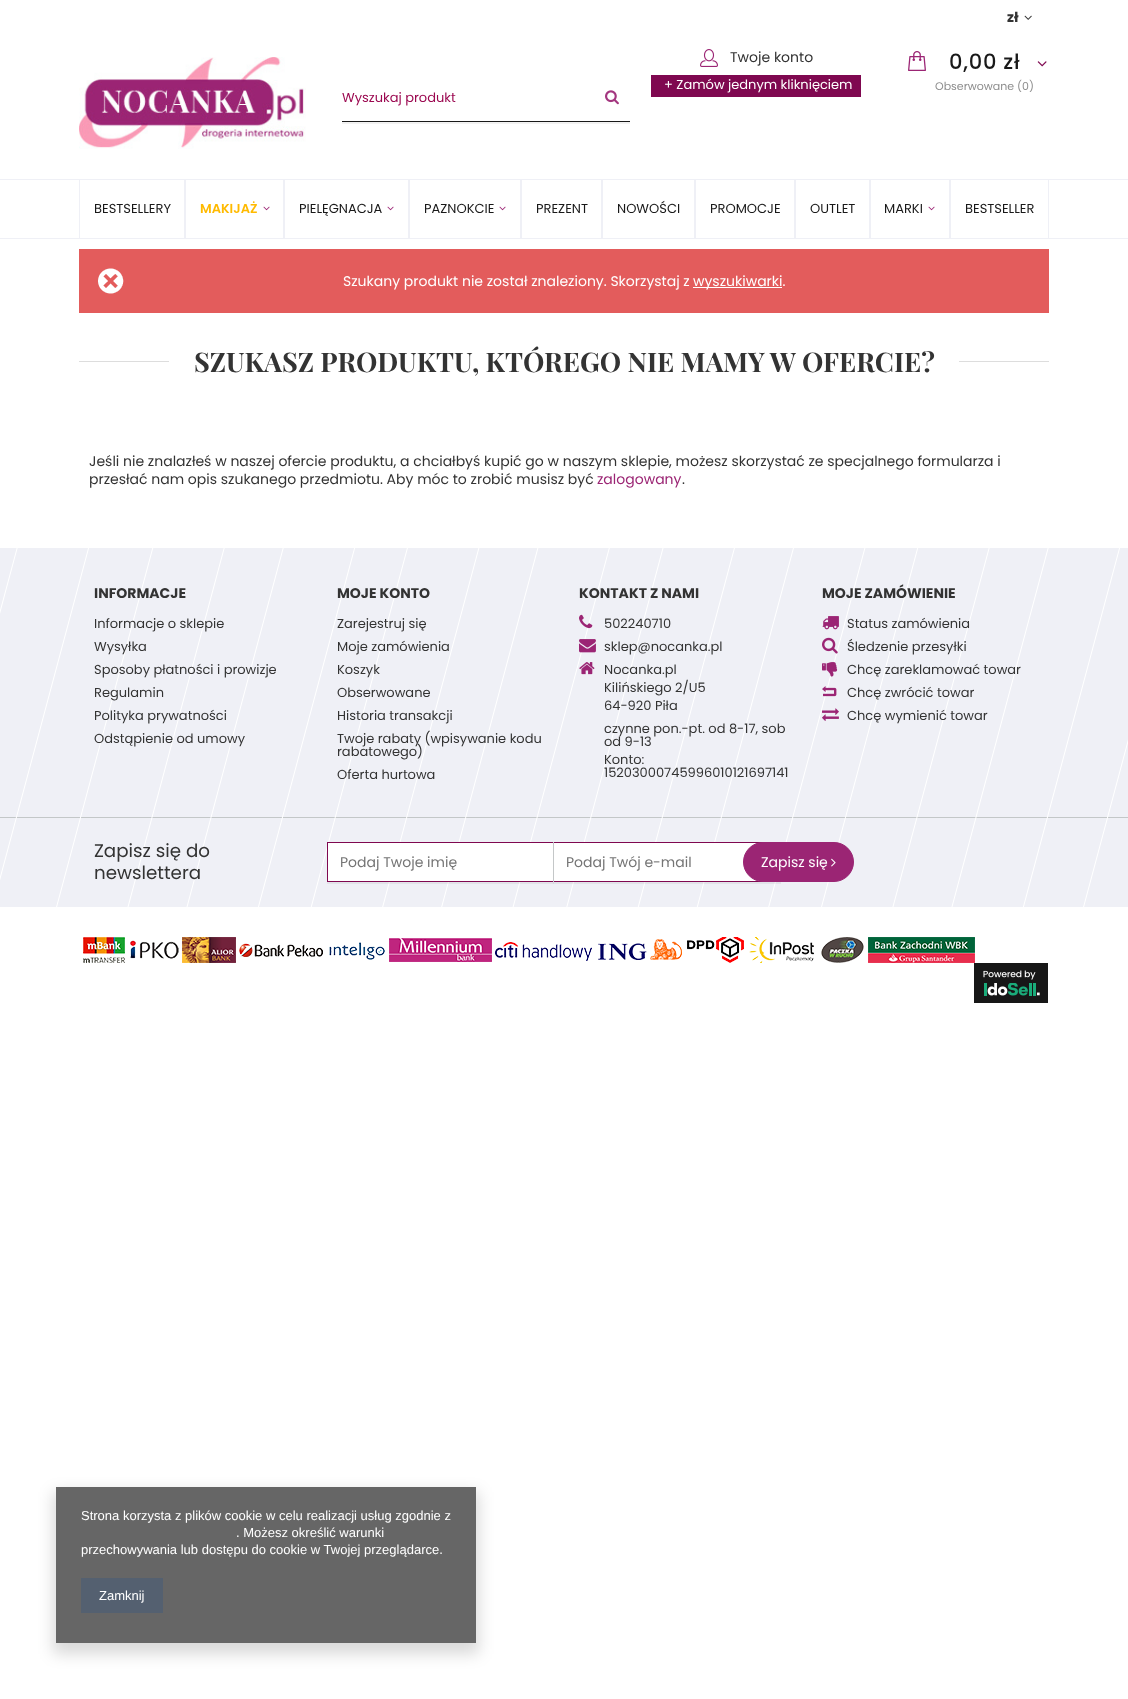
async function draw(canvas) {
  canvas.width = 1128;
  canvas.height = 1699;
  const ctx = canvas.getContext('2d');
  ctx.miterLimit = 4;
  ctx.fontKerning = 'normal';
  function label(s, x, y, font, color) {
    ctx.font = font;
    ctx.fillStyle = color;
    ctx.fillText(s, x, y);
  }
  function rect(x, y, w, h, color) {
    ctx.fillStyle = color;
    ctx.fillRect(x, y, w, h);
  }
  async function image(src, x, y, w, h) {
    const img = new Image();
    img.src = src;
    await img.decode();
    ctx.drawImage(img, x, y, w, h);
  }

  rect(0, 0, 1128, 1699, '#fff');
  label('zł', 1007, 22, 'bold 14px Poppins', '#333');
  await image('assets/img1.png', 1024, 15, 8, 5);
  await image('assets/img2.png', 79, 57, 227, 92);
  rect(342, 122, 288, 2, '#f2f2f2');
  rect(342, 121, 288, 1, '#191919');
  label('Wyszukaj produkt', 342, 102, '13px Poppins', '#9b0850');
  await image('assets/img3.png', 605, 90, 14, 15);
  await image('assets/img4.png', 700, 49, 18, 18);
  label('Twoje konto', 730, 62, '14px Poppins', '#333');
  rect(651, 75, 210, 22, '#7f0850');
  label('+ Zamów jednym kliknięciem', 664, 89, '13px Poppins', '#fff');
  await image('assets/img5.png', 908, 51, 18, 20);
  ctx.letterSpacing = '0.75px';
  label('0,00 zł', 949, 69, '500 21px Poppins', '#191919');
  ctx.letterSpacing = '0px';
  label('Obserwowane (0)', 935, 90, '11px Poppins', '#8e8e8e');
  await image('assets/img6.png', 1037, 61, 10, 6);
  rect(0, 179, 1128, 1, '#eff0f6');
  rect(0, 238, 1128, 1, '#eff0f6');
  rect(184, 179, 2, 60, '#eff0f6');
  rect(79, 179, 1, 60, '#eff0f6');
  label('BESTSELLERY', 94, 213, '13px Poppins', '#191919');
  rect(283, 179, 2, 60, '#eff0f6');
  label('MAKIJAŻ', 200, 213, '600 13px Poppins', '#ffba00');
  await image('assets/img7.png', 263, 206, 7, 5);
  rect(408, 179, 2, 60, '#eff0f6');
  label('PIELĘGNACJA', 299, 213, '13px Poppins', '#191919');
  await image('assets/img7.png', 387, 206, 7, 5);
  rect(520, 179, 2, 60, '#eff0f6');
  label('PAZNOKCIE', 424, 213, '13px Poppins', '#191919');
  await image('assets/img7.png', 499, 206, 7, 5);
  rect(601, 179, 2, 60, '#eff0f6');
  label('PREZENT', 536, 213, '13px Poppins', '#191919');
  rect(694, 179, 2, 60, '#eff0f6');
  label('NOWOŚCI', 617, 213, '13px Poppins', '#191919');
  rect(794, 179, 2, 60, '#eff0f6');
  label('PROMOCJE', 710, 213, '13px Poppins', '#191919');
  rect(869, 179, 2, 60, '#eff0f6');
  label('OUTLET', 810, 213, '13px Poppins', '#191919');
  rect(949, 179, 2, 60, '#eff0f6');
  label('MARKI', 884, 213, '13px Poppins', '#191919');
  await image('assets/img7.png', 928, 206, 7, 5);
  rect(1048, 179, 1, 60, '#eff0f6');
  label('BESTSELLER', 965, 213, '13px Poppins', '#191919');
  rect(79, 249, 970, 64, '#e35c5c');
  await image('assets/img8.png', 98, 268, 26, 26);
  label('Szukany produkt nie został znaleziony. Skorzystaj z', 343, 286, '14px Poppins', '#fff');
  rect(693, 287, 89, 1, '#fff');
  label('wyszukiwarki.', 693, 286, '14px Poppins', '#fff');
  rect(79, 361, 970, 1, '#ddd');
  rect(169, 361, 790, 1, '#fff');
  label('SZUKASZ PRODUKTU, KTÓREGO NIE MAMY W OFERCIE?', 194, 372, 'bold 27px Playfair Display', '#333');
  label('Jeśli nie znalazłeś w naszej ofercie produktu, a chciałbyś kupić go w naszym sklepie, możesz skorzystać ze specjalnego formularza i', 89, 466, '14px Poppins', '#333');
  label('przesłać nam opis szukanego przedmiotu. Aby móc to zrobić musisz być', 89, 484, '14px Poppins', '#333');
  label('zalogowany', 597, 484, '14px Poppins', '#9b2574');
  label('.', 682, 484, '14px Poppins', '#333');
  rect(0, 548, 1128, 269, '#eff0f6');
  rect(0, 818, 1128, 89, '#eff0f6');
  rect(0, 817, 1128, 1, '#c3c7c8');
  await image('assets/img9.png', 0, 548, 1128, 359);
  label('INFORMACJE', 94, 598, 'bold 14px Poppins', '#333');
  label('Informacje o sklepie', 94, 628, '13px Poppins', '#333');
  label('Wysyłka', 94, 651, '13px Poppins', '#333');
  label('Sposoby płatności i prowizje', 94, 674, '13px Poppins', '#333');
  label('Regulamin', 94, 697, '13px Poppins', '#333');
  label('Polityka prywatności', 94, 720, '13px Poppins', '#333');
  label('Odstąpienie od umowy', 94, 743, '13px Poppins', '#333');
  label('MOJE KONTO', 337, 598, 'bold 14px Poppins', '#333');
  label('Zarejestruj się', 337, 628, '13px Poppins', '#333');
  label('Moje zamówienia', 337, 651, '13px Poppins', '#333');
  label('Koszyk', 337, 674, '13px Poppins', '#333');
  label('Obserwowane', 337, 697, '13px Poppins', '#333');
  label('Historia transakcji', 337, 720, '13px Poppins', '#333');
  label('Twoje rabaty (wpisywanie kodu', 337, 743, '13px Poppins', '#333');
  label('rabatowego)', 337, 756, '13px Poppins', '#333');
  label('Oferta hurtowa', 337, 779, '13px Poppins', '#333');
  label('KONTAKT Z NAMI', 579, 598, 'bold 14px Poppins', '#333');
  await image('assets/img10.png', 579, 614, 14, 15);
  label('502240710', 604, 628, '13px Poppins', '#333');
  await image('assets/img11.png', 579, 639, 17, 14);
  label('sklep@nocanka.pl', 604, 651, '13px Poppins', '#333');
  await image('assets/img12.png', 579, 662, 16, 13);
  label('Nocanka.pl', 604, 674, '13px Poppins', '#333');
  label('Kilińskiego 2/U5', 604, 692, '13px Poppins', '#333');
  label('64-920 Piła', 604, 710, '13px Poppins', '#333');
  label('czynne pon.-pt. od 8-17, sob', 604, 733, '13px Poppins', '#333');
  label('od 9-13', 604, 746, '13px Poppins', '#333');
  label('Konto:', 604, 764, '13px Poppins', '#333');
  label('15203000745996010121697141', 604, 777, '13px Poppins', '#333');
  label('MOJE ZAMÓWIENIE', 822, 598, 'bold 14px Poppins', '#333');
  await image('assets/img13.png', 822, 616, 17, 14);
  label('Status zamówienia', 847, 628, '13px Poppins', '#333');
  await image('assets/img14.png', 822, 637, 16, 17);
  label('Śledzenie przesyłki', 847, 651, '13px Poppins', '#333');
  await image('assets/img15.png', 822, 662, 16, 15);
  label('Chcę zareklamować towar', 847, 674, '13px Poppins', '#333');
  await image('assets/img16.png', 822, 686, 15, 11);
  label('Chcę zwrócić towar', 847, 697, '13px Poppins', '#333');
  await image('assets/img17.png', 822, 708, 17, 13);
  label('Chcę wymienić towar', 847, 720, '13px Poppins', '#333');
  label('Zapisz się do', 94, 857, '18.25px Poppins', '#333');
  label('newslettera', 94, 879, '18.25px Poppins', '#333');
  rect(327, 882, 227, 2, '#0000000d');
  rect(328, 843, 225, 38, '#fff');
  rect(327, 842, 436, 1, '#7f0850');
  rect(327, 881, 436, 1, '#7f0850');
  rect(327, 842, 1, 40, '#7f0850');
  label('Podaj Twoje imię', 340, 867, '14px Poppins', '#757575');
  rect(553, 882, 228, 2, '#0000000d');
  rect(554, 843, 203, 38, '#fff');
  rect(553, 842, 1, 40, '#c4c7c8');
  label('Podaj Twój e-mail', 566, 867, '14px Poppins', '#757575');
  ctx.fillStyle = '#9b2574';
  ctx.beginPath();
  ctx.roundRect(743.5, 842.5, 110, 39, 19.5);
  ctx.fill();
  ctx.strokeStyle = '#9b2574';
  ctx.stroke();
  label('Zapisz się', 761, 867, '14px Poppins', '#fff');
  await image('assets/img18.png', 831, 858, 5, 9);
  await image('assets/img19.png', 83, 937, 42, 26);
  await image('assets/img20.png', 130, 940, 49, 19);
  await image('assets/img21.png', 182, 937, 54, 26);
  await image('assets/img22.png', 239, 943, 84, 14);
  await image('assets/img23.png', 329, 942, 56, 18);
  await image('assets/img24.png', 389, 938, 103, 24);
  await image('assets/img25.png', 495, 942, 97, 19);
  await image('assets/img26.png', 598, 939, 84, 21);
  await image('assets/img27.png', 687, 937, 57, 26);
  await image('assets/img28.png', 749, 937, 65, 26);
  await image('assets/img29.png', 821, 937, 43, 26);
  await image('assets/img30.png', 868, 937, 107, 26);
  await image('assets/img31.png', 974, 963, 74, 40);
  ctx.fillStyle = '#00000026';
  ctx.filter = 'blur(7.5px)';
  ctx.beginPath();
  ctx.rect(53, 1492, 426, 162);
  ctx.fill();
  ctx.filter = 'none';
  rect(56, 1487, 420, 156, '#666');
  label('Strona korzysta z plików cookie w celu realizacji usług zgodnie z', 81, 1520, '13px Liberation Sans', '#fff');
  label('. Możesz określić warunki', 236, 1537, '13px Liberation Sans', '#fff');
  label('przechowywania lub dostępu do cookie w Twojej przeglądarce.', 81, 1554, '13px Liberation Sans', '#fff');
  rect(81, 1578, 82, 35, '#546070');
  label('Zamknij', 99, 1600, '13px Liberation Sans', '#fff');
}

draw(document.querySelector('canvas'));
